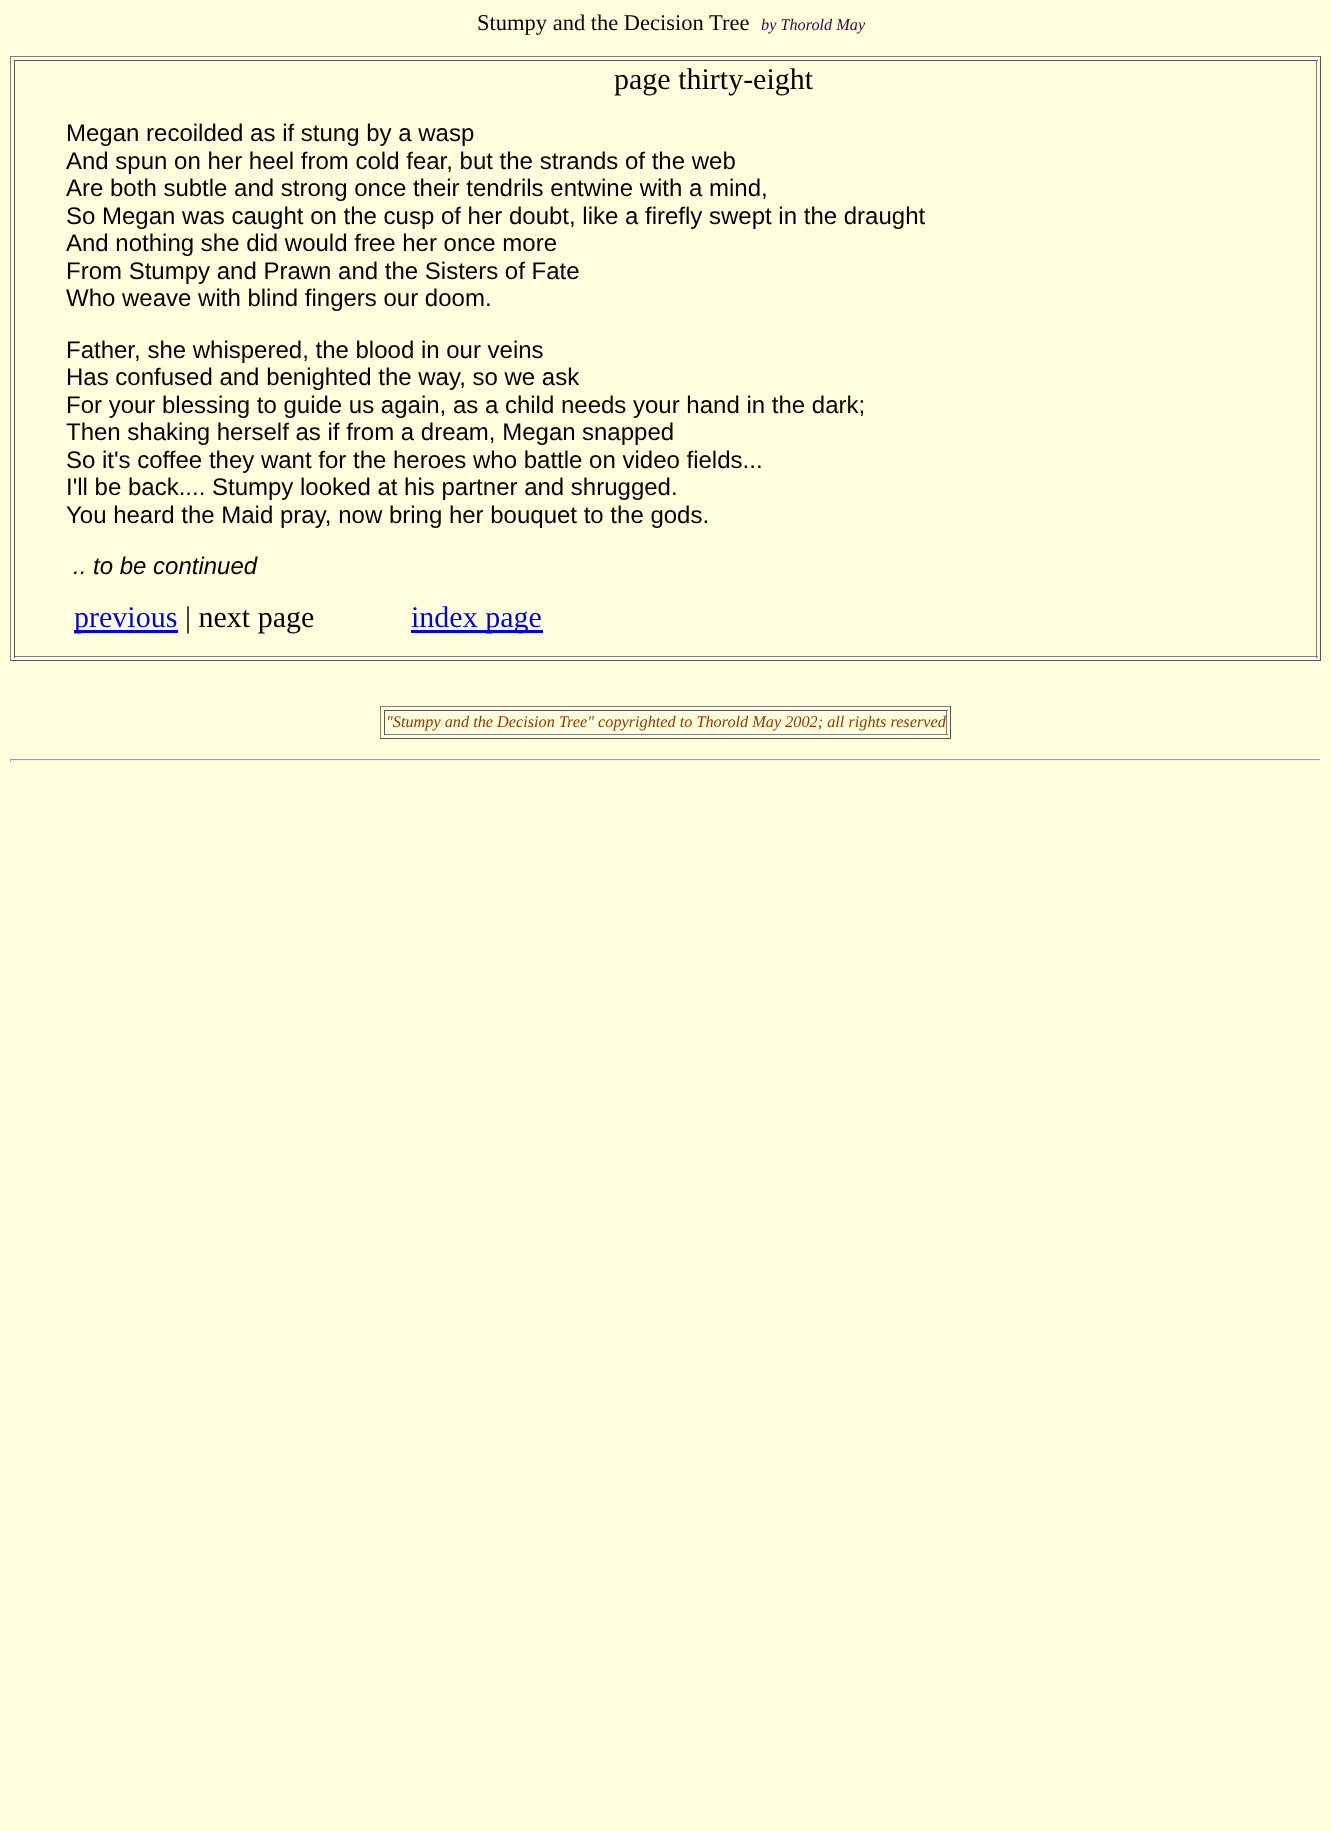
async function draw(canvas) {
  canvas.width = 1331;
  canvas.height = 1831;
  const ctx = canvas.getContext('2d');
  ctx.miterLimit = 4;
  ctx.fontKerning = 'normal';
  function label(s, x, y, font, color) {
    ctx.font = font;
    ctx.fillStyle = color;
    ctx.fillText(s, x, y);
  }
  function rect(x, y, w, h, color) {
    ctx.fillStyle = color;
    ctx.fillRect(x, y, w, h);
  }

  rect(0, 0, 1331, 1831, '#ffd');
  label('Stumpy and the Decision Tree', 477, 30, '22.5px Liberation Serif', '#000');
  label('by Thorold May', 761, 30, 'italic 16.25px Liberation Serif', '#400040');
  rect(10, 56, 1311, 1, '#808080');
  rect(1320, 56, 1, 605, '#555');
  rect(10, 660, 1311, 1, '#555');
  rect(10, 56, 1, 605, '#808080');
  rect(14, 60, 1304, 1, '#555');
  rect(1316, 60, 1, 598, '#808080');
  rect(14, 656, 1304, 1, '#808080');
  rect(14, 60, 1, 598, '#555');
  label('page thirty-eight', 614, 89, '30px Liberation Serif', '#000');
  label('Megan recoilded as if stung by a wasp', 66, 141, '24px Liberation Sans', '#000');
  label('And spun on her heel from cold fear, but the strands of the web', 66, 169, '24px Liberation Sans', '#000');
  label('Are both subtle and strong once their tendrils entwine with a mind,', 66, 196, '24px Liberation Sans', '#000');
  label('So Megan was caught on the cusp of her doubt, like a', 66, 224, '24px Liberation Sans', '#000');
  label('firefly swept in the draught', 645, 224, '24px Liberation Sans', '#000');
  label('And nothing she did would free her once more', 66, 251, '24px Liberation Sans', '#000');
  label('From Stumpy and Prawn and the Sisters of Fate', 66, 279, '24px Liberation Sans', '#000');
  label('Who weave with blind fingers our doom.', 66, 306, '24px Liberation Sans', '#000');
  label('Father, she whispered, the blood in our veins', 66, 358, '24px Liberation Sans', '#000');
  label('Has confused and benighted the way, so we ask', 66, 385, '24px Liberation Sans', '#000');
  label('For your blessing to guide us again, as a child needs your hand in the dark;', 66, 413, '24px Liberation Sans', '#000');
  label('Then shaking herself as if from a dream, Megan', 66, 440, '24px Liberation Sans', '#000');
  label('snapped', 582, 440, '24px Liberation Sans', '#000');
  label('So it\'s coffee they want for the heroes who battle on video fields...', 66, 468, '24px Liberation Sans', '#000');
  label('I\'ll be back.... Stumpy looked at his partner and shrugged.', 66, 495, '24px Liberation Sans', '#000');
  label('You heard the Maid pray, now bring her bouquet to the gods.', 66, 523, '24px Liberation Sans', '#000');
  label('.. to be continued', 73, 574, 'italic 24px Liberation Sans', '#000');
  rect(74, 630, 104, 3, '#00e');
  label('previous', 74, 627, '30px Liberation Serif', '#00e');
  label('| next page', 185, 627, '30px Liberation Serif', '#000');
  rect(411, 630, 132, 3, '#00e');
  label('index page', 411, 627, '30px Liberation Serif', '#00e');
  rect(380, 706, 571, 1, '#808080');
  rect(950, 706, 1, 33, '#555');
  rect(380, 738, 571, 1, '#555');
  rect(380, 706, 1, 33, '#808080');
  rect(384, 710, 564, 1, '#555');
  rect(946, 710, 1, 25, '#808080');
  rect(384, 734, 564, 1, '#808080');
  rect(384, 710, 1, 25, '#555');
  label('"Stumpy and the Decision Tree" copyrighted to Thorold May 2002; all rights reserved', 386, 727, 'italic 16.25px Liberation Serif', '#930');
  rect(10, 759, 1311, 1, '#9f9f9f');
  rect(1320, 759, 1, 3, '#eee');
  rect(10, 760, 1311, 1, '#eee');
  rect(10, 759, 1, 3, '#9f9f9f');
}

draw(document.querySelector('canvas'));
